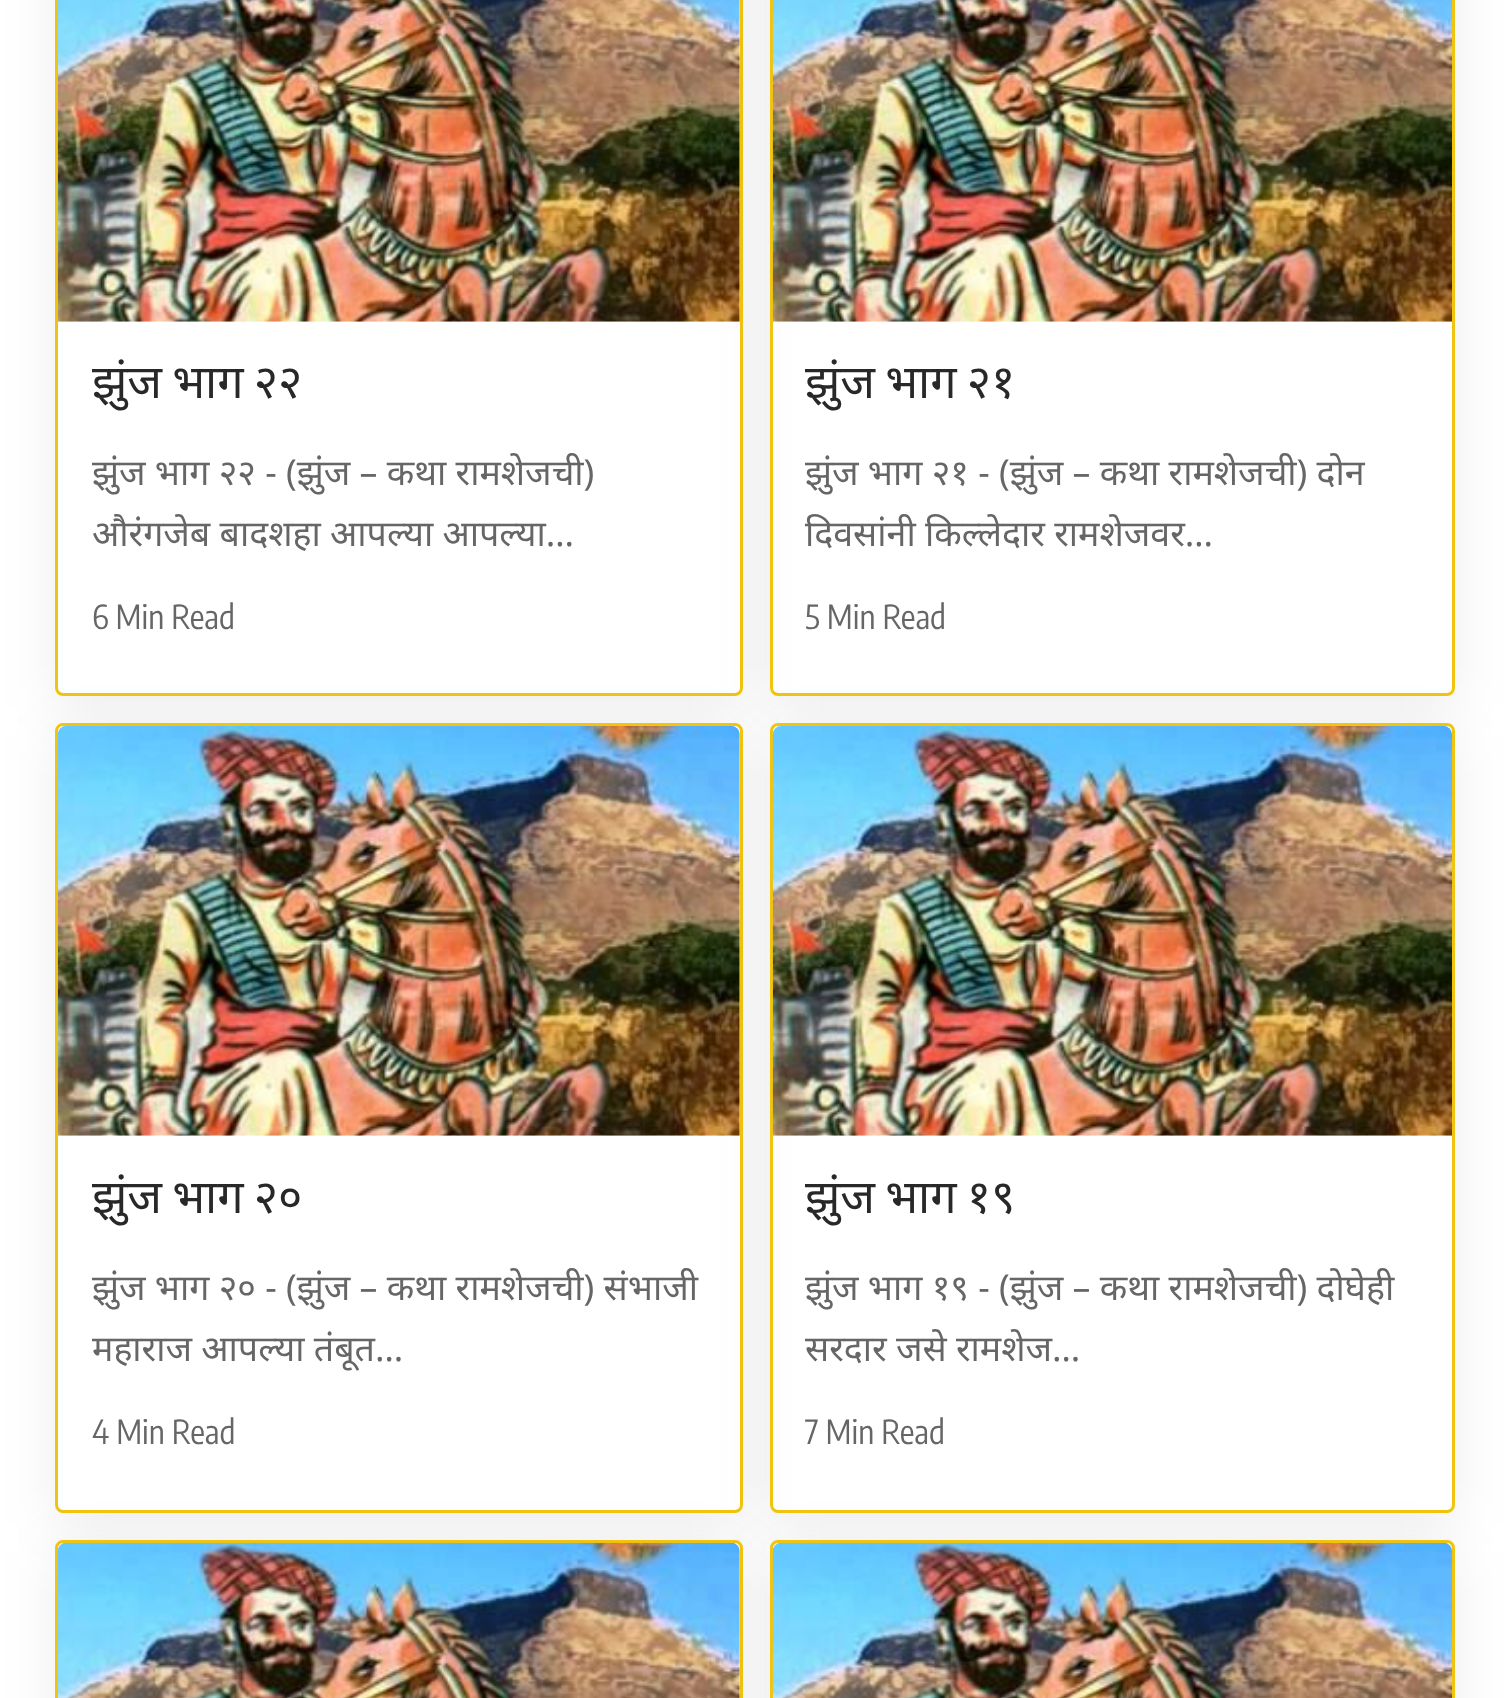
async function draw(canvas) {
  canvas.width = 1509;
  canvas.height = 1698;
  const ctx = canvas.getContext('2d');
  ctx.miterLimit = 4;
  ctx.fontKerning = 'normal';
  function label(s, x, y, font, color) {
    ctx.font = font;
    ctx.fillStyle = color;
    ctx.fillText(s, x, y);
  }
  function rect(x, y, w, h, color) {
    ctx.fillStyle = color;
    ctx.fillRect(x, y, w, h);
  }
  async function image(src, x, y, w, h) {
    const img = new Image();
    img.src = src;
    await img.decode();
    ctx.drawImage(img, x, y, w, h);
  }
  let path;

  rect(0, 0, 1509, 1698, '#fff');
  ctx.save();
  path = new Path2D('M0 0H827V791H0ZM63-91H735C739.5-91 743-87.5 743-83V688C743 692.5 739.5 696 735 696H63C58.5 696 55 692.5 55 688V-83C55-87.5 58.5-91 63-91Z');
  ctx.clip(path, 'evenodd');
  ctx.fillStyle = '#00000012';
  ctx.filter = 'blur(27.5px)';
  ctx.beginPath();
  ctx.roundRect(55, -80, 688, 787, 8);
  ctx.fill();
  ctx.filter = 'none';
  ctx.restore();
  ctx.beginPath();
  ctx.roundRect(56.5, -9.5, 685, 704, 6.5);
  ctx.strokeStyle = '#f1c40f';
  ctx.lineWidth = 3;
  ctx.stroke();
  ctx.save();
  path = new Path2D('M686 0H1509V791H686ZM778-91H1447C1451.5-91 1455-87.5 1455-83V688C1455 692.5 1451.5 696 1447 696H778C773.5 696 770 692.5 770 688V-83C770-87.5 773.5-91 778-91Z');
  ctx.clip(path, 'evenodd');
  ctx.fillStyle = '#00000012';
  ctx.filter = 'blur(27.5px)';
  ctx.beginPath();
  ctx.roundRect(770, -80, 685, 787, 8);
  ctx.fill();
  ctx.filter = 'none';
  ctx.restore();
  await image('assets/img1.png', 57, 0, 683, 322);
  ctx.wordSpacing = '-2px';
  label('झुंज भाग २२', 92, 398, '46.75px Noto Sans', '#282828');
  ctx.wordSpacing = '0px';
  label('झुंज भाग २२ - (झुंज – कथा रामशेजची)', 92, 485, '35.75px Noto Sans', '#666');
  label('औरंगजेब बादशहा आपल्या आपल्या…', 92, 546, '35.75px Noto Sans', '#666');
  label('6 Min Read', 92, 629, '33px Encode Sans Condensed', '#666');
  ctx.beginPath();
  ctx.roundRect(771.5, -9.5, 682, 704, 6.5);
  ctx.stroke();
  await image('assets/img2.png', 772, 0, 680, 322);
  ctx.wordSpacing = '-2px';
  label('झुंज भाग २१', 805, 398, '46.75px Noto Sans', '#282828');
  ctx.wordSpacing = '0px';
  label('झुंज भाग २१ - (झुंज – कथा रामशेजची) दोन', 805, 485, '35.75px Noto Sans', '#666');
  label('दिवसांनी किल्लेदार रामशेजवर…', 805, 546, '35.75px Noto Sans', '#666');
  label('5 Min Read', 805, 629, '33px Encode Sans Condensed', '#666');
  ctx.save();
  path = new Path2D('M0 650H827V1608H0ZM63 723H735C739.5 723 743 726.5 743 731V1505C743 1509.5 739.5 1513 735 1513H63C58.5 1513 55 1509.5 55 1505V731C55 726.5 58.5 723 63 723Z');
  ctx.clip(path, 'evenodd');
  ctx.fillStyle = '#00000012';
  ctx.filter = 'blur(27.5px)';
  ctx.beginPath();
  ctx.roundRect(55, 734, 688, 790, 8);
  ctx.fill();
  ctx.filter = 'none';
  ctx.restore();
  ctx.beginPath();
  ctx.roundRect(56.5, 724.5, 685, 787, 6.5);
  ctx.stroke();
  ctx.save();
  path = new Path2D('M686 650H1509V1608H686ZM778 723H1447C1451.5 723 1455 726.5 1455 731V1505C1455 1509.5 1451.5 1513 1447 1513H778C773.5 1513 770 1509.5 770 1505V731C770 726.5 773.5 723 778 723Z');
  ctx.clip(path, 'evenodd');
  ctx.fillStyle = '#00000012';
  ctx.filter = 'blur(27.5px)';
  ctx.beginPath();
  ctx.roundRect(770, 734, 685, 790, 8);
  ctx.fill();
  ctx.filter = 'none';
  ctx.restore();
  await image('assets/img3.png', 57, 726, 683, 410);
  ctx.wordSpacing = '-2px';
  label('झुंज भाग २०', 92, 1213, '46.75px Noto Sans', '#282828');
  ctx.wordSpacing = '0px';
  label('झुंज भाग २० - (झुंज – कथा रामशेजची) संभाजी', 92, 1300, '35.75px Noto Sans', '#666');
  label('महाराज आपल्या तंबूत…', 92, 1361, '35.75px Noto Sans', '#666');
  label('4 Min Read', 92, 1444, '33px Encode Sans Condensed', '#666');
  ctx.beginPath();
  ctx.roundRect(771.5, 724.5, 682, 787, 6.5);
  ctx.stroke();
  await image('assets/img4.png', 772, 726, 680, 410);
  ctx.wordSpacing = '-2px';
  label('झुंज भाग १९', 805, 1213, '46.75px Noto Sans', '#282828');
  ctx.wordSpacing = '0px';
  label('झुंज भाग १९ - (झुंज – कथा रामशेजची) दोघेही', 805, 1300, '35.75px Noto Sans', '#666');
  label('सरदार जसे रामशेज…', 805, 1361, '35.75px Noto Sans', '#666');
  label('7 Min Read', 805, 1444, '33px Encode Sans Condensed', '#666');
  ctx.fillStyle = '#00000012';
  ctx.filter = 'blur(27.5px)';
  ctx.beginPath();
  ctx.roundRect(55, 1551, 688, 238, 8);
  ctx.fill();
  ctx.filter = 'none';
  ctx.beginPath();
  ctx.roundRect(56.5, 1541.5, 685, 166, 6.5);
  ctx.stroke();
  ctx.filter = 'blur(27.5px)';
  ctx.beginPath();
  ctx.roundRect(770, 1551, 685, 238, 8);
  ctx.fill();
  ctx.filter = 'none';
  await image('assets/img5.png', 57, 1542, 683, 156);
  ctx.beginPath();
  ctx.roundRect(771.5, 1541.5, 682, 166, 6.5);
  ctx.stroke();
  await image('assets/img6.png', 772, 1542, 680, 156);
}

draw(document.querySelector('canvas'));
